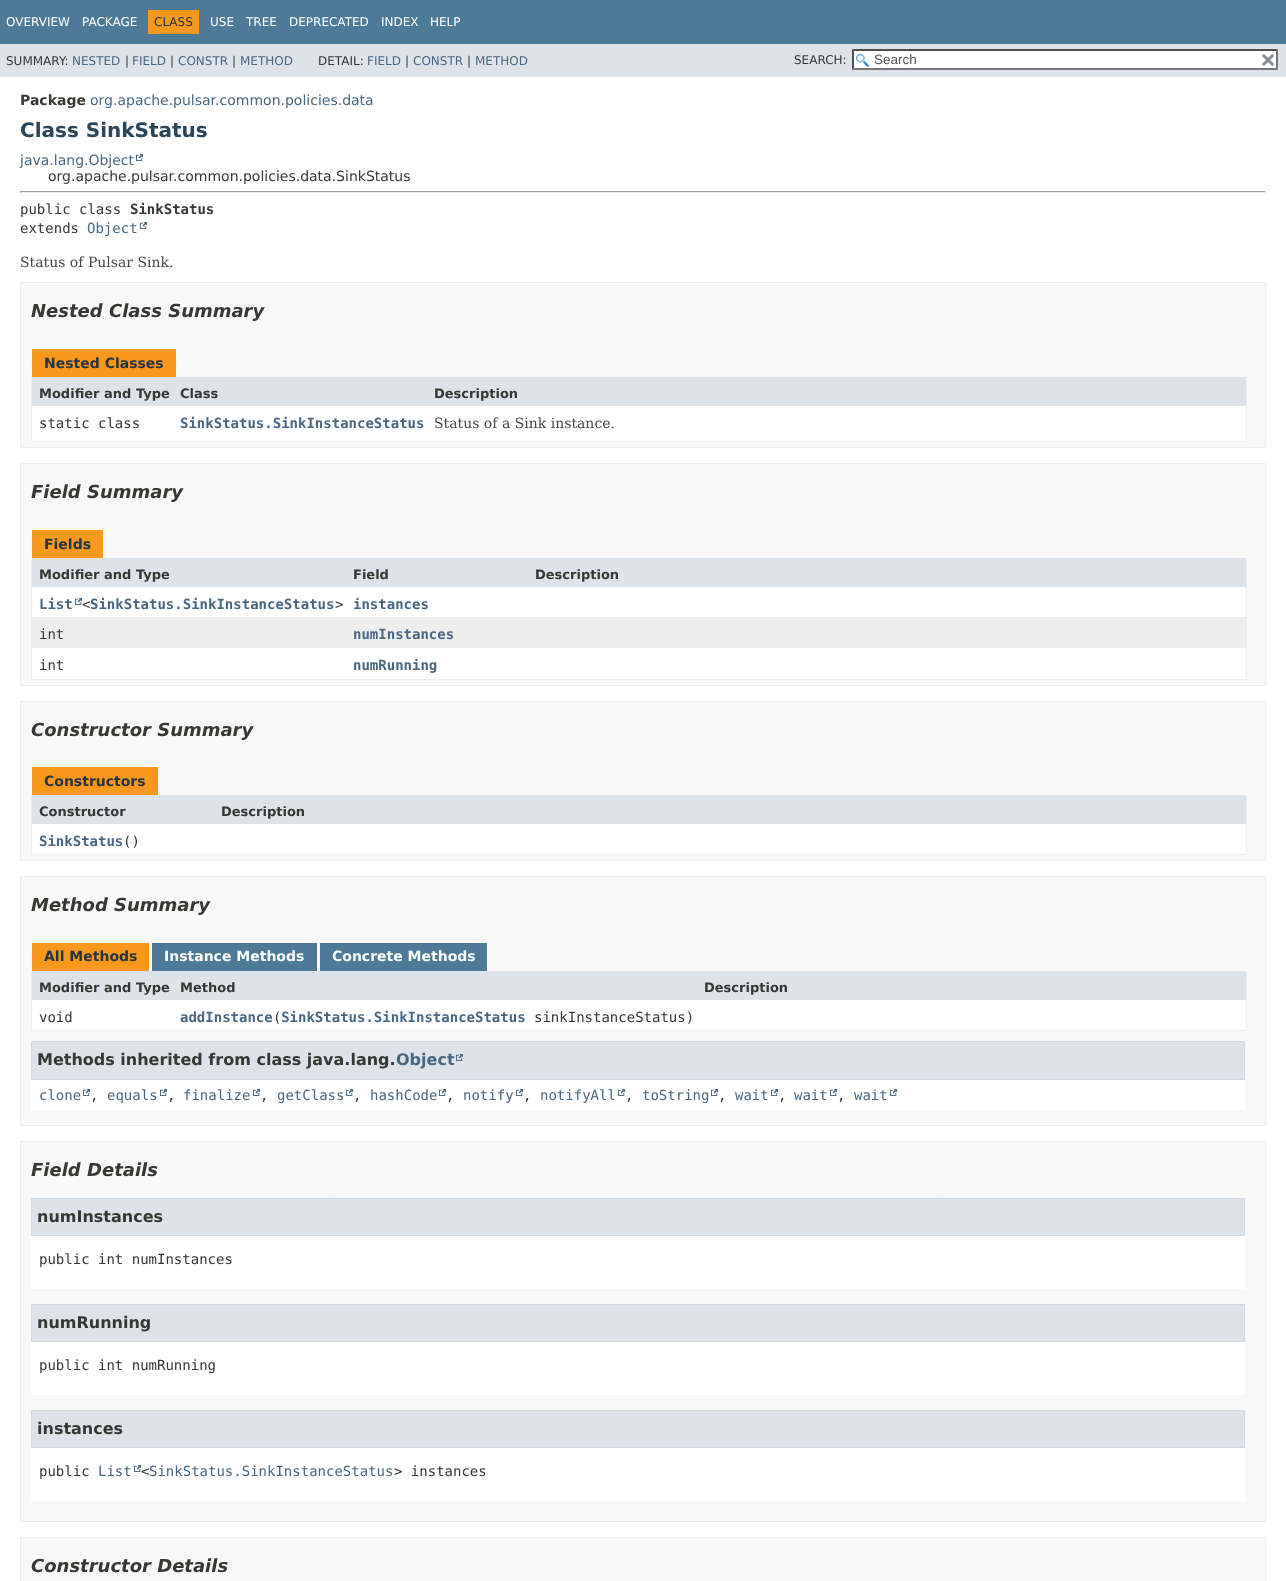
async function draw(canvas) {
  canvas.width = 1286;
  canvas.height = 1581;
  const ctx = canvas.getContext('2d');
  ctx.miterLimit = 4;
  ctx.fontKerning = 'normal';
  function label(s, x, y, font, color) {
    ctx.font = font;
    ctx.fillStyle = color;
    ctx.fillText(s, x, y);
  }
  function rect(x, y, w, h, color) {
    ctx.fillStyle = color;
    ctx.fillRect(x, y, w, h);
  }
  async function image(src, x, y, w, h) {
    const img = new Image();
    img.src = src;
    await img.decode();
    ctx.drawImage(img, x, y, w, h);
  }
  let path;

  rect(0, 0, 1286, 1581, '#fff');
  rect(0, 0, 1286, 44, '#4d7a97');
  label('OVERVIEW', 6, 26, '12px DejaVu Sans', '#fff');
  label('PACKAGE', 82, 26, '12px DejaVu Sans', '#fff');
  rect(148, 10, 51, 24, '#f8981d');
  label('CLASS', 154, 26, '12px DejaVu Sans', '#253441');
  label('USE', 210, 26, '12px DejaVu Sans', '#fff');
  label('TREE', 246, 26, '12px DejaVu Sans', '#fff');
  label('DEPRECATED', 289, 26, '12px DejaVu Sans', '#fff');
  label('INDEX', 381, 26, '12px DejaVu Sans', '#fff');
  label('HELP', 430, 26, '12px DejaVu Sans', '#fff');
  rect(0, 44, 1286, 33, '#dee3e9');
  label('SUMMARY:', 6, 65, '12px DejaVu Sans', '#353833');
  label('NESTED', 72, 65, '12px DejaVu Sans', '#4a6782');
  label('|', 125, 65, '12px DejaVu Sans', '#353833');
  label('FIELD', 132, 65, '12px DejaVu Sans', '#4a6782');
  label('|', 170, 65, '12px DejaVu Sans', '#353833');
  label('CONSTR', 178, 65, '12px DejaVu Sans', '#4a6782');
  label('|', 232, 65, '12px DejaVu Sans', '#353833');
  label('METHOD', 240, 65, '12px DejaVu Sans', '#4a6782');
  label('DETAIL:', 318, 65, '12px DejaVu Sans', '#353833');
  label('FIELD', 367, 65, '12px DejaVu Sans', '#4a6782');
  label('|', 405, 65, '12px DejaVu Sans', '#353833');
  label('CONSTR', 413, 65, '12px DejaVu Sans', '#4a6782');
  label('|', 467, 65, '12px DejaVu Sans', '#353833');
  label('METHOD', 475, 65, '12px DejaVu Sans', '#4a6782');
  label('SEARCH:', 794, 64, '12px DejaVu Sans', '#353833');
  rect(852, 49, 426, 21, '#fff');
  await image('assets/img1.png', 856, 54, 13, 13);
  ctx.fillStyle = '#4f4f4f';
  path = new Path2D('M852 49H1278L1276 51H854Z');
  ctx.fill(path);
  ctx.fillStyle = '#767676';
  path = new Path2D('M1278 49V70L1276 68V51Z');
  ctx.fill(path);
  path = new Path2D('M1278 70H852L854 68H1276Z');
  ctx.fill(path);
  ctx.fillStyle = '#4f4f4f';
  path = new Path2D('M852 70V49L854 51V68Z');
  ctx.fill(path);
  label('Search', 874, 64, '13.5px Liberation Sans', '#545454');
  await image('assets/img2.png', 1261, 54, 14, 12);
  label('Package', 20, 105, 'bold 14px DejaVu Sans', '#353833');
  label('org.apache.pulsar.common.policies.data', 90, 105, '14px DejaVu Sans', '#4a6782');
  label('Class SinkStatus', 20, 137, 'bold 20px DejaVu Sans', '#2c4557');
  label('java.lang.Object', 20, 165, '14px DejaVu Sans', '#4a6782');
  await image('assets/img3.png', 136, 154, 7, 7);
  label('org.apache.pulsar.common.policies.data.SinkStatus', 48, 181, '14px DejaVu Sans', '#353833');
  rect(20, 191, 1246, 1, '#9f9f9f');
  rect(1265, 191, 1, 2, '#eee');
  rect(20, 192, 1246, 1, '#eee');
  rect(20, 191, 1, 2, '#9f9f9f');
  label('public class', 20, 214, '14px DejaVu Sans Mono', '#353833');
  label('SinkStatus', 130, 214, 'bold 14px DejaVu Sans Mono', '#353833');
  label('extends', 20, 233, '14px DejaVu Sans Mono', '#353833');
  label('Object', 87, 233, '14px DejaVu Sans Mono', '#4a6782');
  await image('assets/img3.png', 140, 222, 7, 7);
  label('Status of Pulsar Sink.', 20, 267, '14px DejaVu Serif', '#474747');
  ctx.fillStyle = '#f8f8f8';
  ctx.beginPath();
  ctx.rect(20.5, 282.5, 1245, 165);
  ctx.fill();
  ctx.strokeStyle = '#ededed';
  ctx.stroke();
  label('Nested Class Summary', 31, 317, 'italic bold 18px DejaVu Sans', '#353833');
  rect(32, 349, 144, 28, '#f8981d');
  label('Nested Classes', 44, 368, 'bold 14px DejaVu Sans', '#253441');
  rect(1246, 377, 1, 65, '#eee');
  rect(31, 441, 1216, 1, '#eee');
  rect(31, 377, 1, 65, '#eee');
  rect(32, 377, 395, 29, '#dee3e9');
  label('Modifier and Type', 39, 398, 'bold 13px DejaVu Sans', '#353833');
  label('Class', 180, 398, 'bold 13px DejaVu Sans', '#353833');
  rect(427, 377, 819, 29, '#dee3e9');
  label('Description', 434, 398, 'bold 13px DejaVu Sans', '#353833');
  rect(32, 406, 395, 35, '#fff');
  label('static class', 39, 428, '14px DejaVu Sans Mono', '#353833');
  label('SinkStatus.SinkInstanceStatus', 180, 428, 'bold 14px DejaVu Sans Mono', '#4a6782');
  rect(427, 406, 819, 35, '#fff');
  label('Status of a Sink instance.', 434, 428, '14px DejaVu Serif', '#474747');
  ctx.fillStyle = '#f8f8f8';
  ctx.beginPath();
  ctx.rect(20.5, 463.5, 1245, 222);
  ctx.fill();
  ctx.stroke();
  label('Field Summary', 31, 498, 'italic bold 18px DejaVu Sans', '#353833');
  rect(32, 530, 71, 28, '#f8981d');
  label('Fields', 44, 549, 'bold 14px DejaVu Sans', '#253441');
  rect(1246, 558, 1, 122, '#eee');
  rect(31, 679, 1216, 1, '#eee');
  rect(31, 558, 1, 122, '#eee');
  rect(32, 558, 496, 29, '#dee3e9');
  label('Modifier and Type', 39, 579, 'bold 13px DejaVu Sans', '#353833');
  label('Field', 353, 579, 'bold 13px DejaVu Sans', '#353833');
  rect(528, 558, 718, 29, '#dee3e9');
  label('Description', 535, 579, 'bold 13px DejaVu Sans', '#353833');
  rect(32, 587, 496, 30, '#fff');
  label('List', 39, 609, 'bold 14px DejaVu Sans Mono', '#4a6782');
  await image('assets/img3.png', 75, 598, 7, 7);
  label('<', 82, 609, '14px DejaVu Sans Mono', '#353833');
  label('SinkStatus.SinkInstanceStatus', 90, 609, 'bold 14px DejaVu Sans Mono', '#4a6782');
  label('>', 335, 609, '14px DejaVu Sans Mono', '#353833');
  label('instances', 353, 609, 'bold 14px DejaVu Sans Mono', '#4a6782');
  rect(528, 587, 718, 30, '#fff');
  rect(32, 617, 496, 31, '#eeeeef');
  label('int', 39, 639, '14px DejaVu Sans Mono', '#353833');
  label('numInstances', 353, 639, 'bold 14px DejaVu Sans Mono', '#4a6782');
  rect(528, 617, 718, 31, '#eeeeef');
  rect(32, 648, 496, 31, '#fff');
  label('int', 39, 670, '14px DejaVu Sans Mono', '#353833');
  label('numRunning', 353, 670, 'bold 14px DejaVu Sans Mono', '#4a6782');
  rect(528, 648, 718, 31, '#fff');
  ctx.fillStyle = '#f8f8f8';
  ctx.beginPath();
  ctx.rect(20.5, 701.5, 1245, 159);
  ctx.fill();
  ctx.stroke();
  label('Constructor Summary', 31, 736, 'italic bold 18px DejaVu Sans', '#353833');
  rect(32, 767, 126, 28, '#f8981d');
  label('Constructors', 44, 786, 'bold 14px DejaVu Sans', '#253441');
  rect(1246, 795, 1, 60, '#eee');
  rect(31, 854, 1216, 1, '#eee');
  rect(31, 795, 1, 60, '#eee');
  rect(32, 795, 1214, 29, '#dee3e9');
  label('Constructor', 39, 816, 'bold 13px DejaVu Sans', '#353833');
  label('Description', 221, 816, 'bold 13px DejaVu Sans', '#353833');
  rect(32, 824, 1214, 30, '#fff');
  label('SinkStatus', 39, 846, 'bold 14px DejaVu Sans Mono', '#4a6782');
  label('()', 123, 846, '14px DejaVu Sans Mono', '#353833');
  ctx.fillStyle = '#f8f8f8';
  ctx.beginPath();
  ctx.rect(20.5, 876.5, 1245, 249);
  ctx.fill();
  ctx.stroke();
  label('Method Summary', 31, 911, 'italic bold 18px DejaVu Sans', '#353833');
  rect(32, 943, 117, 28, '#f8981d');
  label('All Methods', 44, 961, 'bold 14px DejaVu Sans', '#253441');
  rect(152, 943, 165, 28, '#4d7a97');
  label('Instance Methods', 164, 961, 'bold 14px DejaVu Sans', '#fff');
  rect(320, 943, 167, 28, '#4d7a97');
  label('Concrete Methods', 332, 961, 'bold 14px DejaVu Sans', '#fff');
  rect(1246, 971, 1, 60, '#eee');
  rect(31, 1030, 1216, 1, '#eee');
  rect(31, 971, 1, 60, '#eee');
  rect(32, 971, 665, 29, '#dee3e9');
  label('Modifier and Type', 39, 992, 'bold 13px DejaVu Sans', '#353833');
  label('Method', 180, 992, 'bold 13px DejaVu Sans', '#353833');
  rect(697, 971, 549, 29, '#dee3e9');
  label('Description', 704, 992, 'bold 13px DejaVu Sans', '#353833');
  rect(32, 1000, 665, 30, '#fff');
  label('void', 39, 1022, '14px DejaVu Sans Mono', '#353833');
  label('addInstance SinkStatus.SinkInstanceStatus', 180, 1022, 'bold 14px DejaVu Sans Mono', '#4a6782');
  label('(', 273, 1022, '14px DejaVu Sans Mono', '#353833');
  label('sinkInstanceStatus)', 534, 1022, '14px DejaVu Sans Mono', '#353833');
  rect(697, 1000, 549, 30, '#fff');
  rect(31, 1080, 1214, 30, '#fff');
  ctx.fillStyle = '#dee3e9';
  ctx.beginPath();
  ctx.rect(31.5, 1041.5, 1213, 38);
  ctx.fill();
  ctx.strokeStyle = '#d0d9e0';
  ctx.stroke();
  label('Methods inherited from class java.lang.', 37, 1065, 'bold 16px DejaVu Sans', '#353833');
  label('Object', 396, 1065, 'bold 16px DejaVu Sans', '#4a6782');
  await image('assets/img4.png', 456, 1054, 7, 7);
  label('clone', 39, 1100, '14px DejaVu Sans Mono', '#4a6782');
  await image('assets/img3.png', 83, 1089, 7, 7);
  label(',', 90, 1100, '14px DejaVu Sans Mono', '#353833');
  label('equals', 107, 1100, '14px DejaVu Sans Mono', '#4a6782');
  await image('assets/img3.png', 160, 1089, 7, 7);
  label(',', 167, 1100, '14px DejaVu Sans Mono', '#353833');
  label('finalize', 183, 1100, '14px DejaVu Sans Mono', '#4a6782');
  await image('assets/img3.png', 253, 1089, 7, 7);
  label(',', 260, 1100, '14px DejaVu Sans Mono', '#353833');
  label('getClass', 277, 1100, '14px DejaVu Sans Mono', '#4a6782');
  await image('assets/img3.png', 346, 1089, 7, 7);
  label(',', 353, 1100, '14px DejaVu Sans Mono', '#353833');
  label('hashCode', 370, 1100, '14px DejaVu Sans Mono', '#4a6782');
  await image('assets/img3.png', 439, 1089, 7, 7);
  label(',', 446, 1100, '14px DejaVu Sans Mono', '#353833');
  label('notify', 463, 1100, '14px DejaVu Sans Mono', '#4a6782');
  await image('assets/img3.png', 516, 1089, 7, 7);
  label(',', 523, 1100, '14px DejaVu Sans Mono', '#353833');
  label('notifyAll', 540, 1100, '14px DejaVu Sans Mono', '#4a6782');
  await image('assets/img3.png', 618, 1089, 7, 7);
  label(',', 625, 1100, '14px DejaVu Sans Mono', '#353833');
  label('toString', 642, 1100, '14px DejaVu Sans Mono', '#4a6782');
  await image('assets/img3.png', 711, 1089, 7, 7);
  label(',', 718, 1100, '14px DejaVu Sans Mono', '#353833');
  label('wait', 735, 1100, '14px DejaVu Sans Mono', '#4a6782');
  await image('assets/img3.png', 771, 1089, 7, 7);
  label(',', 778, 1100, '14px DejaVu Sans Mono', '#353833');
  label('wait', 794, 1100, '14px DejaVu Sans Mono', '#4a6782');
  await image('assets/img3.png', 830, 1089, 7, 7);
  label(',', 837, 1100, '14px DejaVu Sans Mono', '#353833');
  label('wait', 854, 1100, '14px DejaVu Sans Mono', '#4a6782');
  await image('assets/img3.png', 890, 1089, 7, 7);
  ctx.fillStyle = '#f8f8f8';
  ctx.beginPath();
  ctx.rect(20.5, 1141.5, 1245, 380);
  ctx.fill();
  ctx.strokeStyle = '#ededed';
  ctx.stroke();
  label('Field Details', 31, 1176, 'italic bold 18px DejaVu Sans', '#353833');
  rect(31, 1236, 1214, 53, '#fff');
  ctx.fillStyle = '#dee3e9';
  ctx.beginPath();
  ctx.rect(31.5, 1198.5, 1213, 37);
  ctx.fill();
  ctx.strokeStyle = '#d0d9e0';
  ctx.stroke();
  label('numInstances', 37, 1222, 'bold 16px DejaVu Sans', '#353833');
  label('public int numInstances', 39, 1264, '14px DejaVu Sans Mono', '#353833');
  rect(31, 1342, 1214, 53, '#fff');
  ctx.fillStyle = '#dee3e9';
  ctx.beginPath();
  ctx.rect(31.5, 1304.5, 1213, 37);
  ctx.fill();
  ctx.stroke();
  label('numRunning', 37, 1328, 'bold 16px DejaVu Sans', '#353833');
  label('public int numRunning', 39, 1370, '14px DejaVu Sans Mono', '#353833');
  rect(31, 1448, 1214, 53, '#fff');
  ctx.fillStyle = '#dee3e9';
  ctx.beginPath();
  ctx.rect(31.5, 1410.5, 1213, 37);
  ctx.fill();
  ctx.stroke();
  label('instances', 37, 1434, 'bold 16px DejaVu Sans', '#353833');
  label('public', 39, 1476, '14px DejaVu Sans Mono', '#353833');
  label('List', 98, 1476, '14px DejaVu Sans Mono', '#4a6782');
  await image('assets/img3.png', 134, 1465, 7, 7);
  label('<', 141, 1476, '14px DejaVu Sans Mono', '#353833');
  label('SinkStatus.SinkInstanceStatus', 149, 1476, '14px DejaVu Sans Mono', '#4a6782');
  label('> instances', 394, 1476, '14px DejaVu Sans Mono', '#353833');
  ctx.fillStyle = '#f8f8f8';
  ctx.beginPath();
  ctx.rect(20.5, 1537.5, 1245, 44);
  ctx.fill();
  ctx.strokeStyle = '#ededed';
  ctx.stroke();
  label('Constructor Details', 31, 1572, 'italic bold 18px DejaVu Sans', '#353833');
}

draw(document.querySelector('canvas'));
